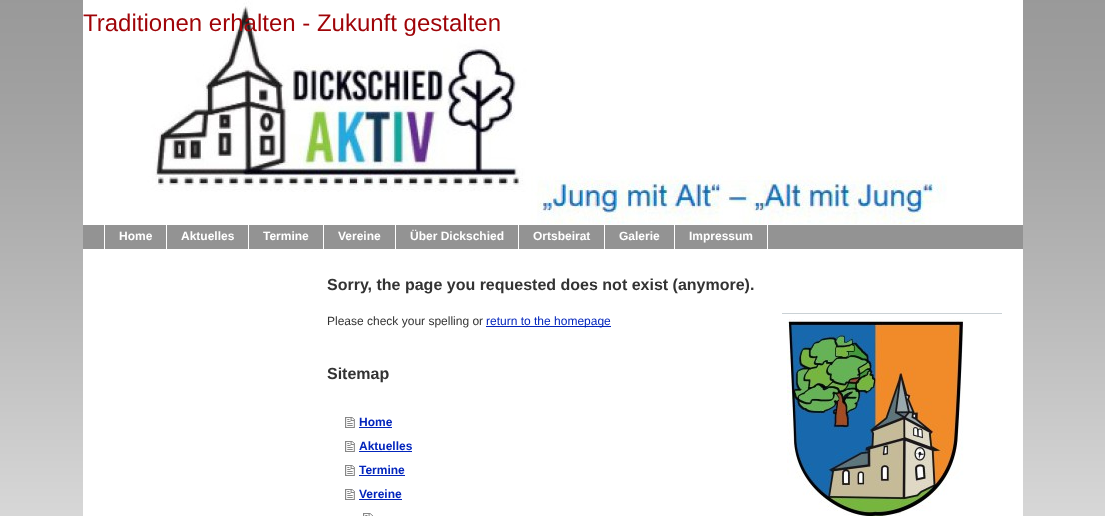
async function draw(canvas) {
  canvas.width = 1105;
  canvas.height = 516;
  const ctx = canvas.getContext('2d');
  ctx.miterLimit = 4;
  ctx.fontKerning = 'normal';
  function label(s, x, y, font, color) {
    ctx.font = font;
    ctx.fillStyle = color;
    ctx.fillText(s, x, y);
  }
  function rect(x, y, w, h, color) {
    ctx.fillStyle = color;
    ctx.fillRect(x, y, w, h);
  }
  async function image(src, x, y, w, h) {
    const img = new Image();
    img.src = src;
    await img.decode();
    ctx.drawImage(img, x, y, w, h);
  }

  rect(0, 0, 1105, 516, '#fff');
  await image('assets/img1.png', 0, 0, 1105, 516);
  rect(83, 224, 940, 292, '#fff');
  await image('assets/img2.png', 83, 0, 940, 224);
  label('Traditionen erhalten - Zukunft gestalten', 83, 31, '24px Liberation Sans', '#9f0408');
  rect(83, 225, 940, 24, '#939393');
  rect(104, 224, 1, 25, '#fff');
  rect(166, 224, 1, 26, '#fff');
  label('Home', 119, 240, 'bold 12px Liberation Sans', '#fff');
  rect(248, 224, 1, 26, '#fff');
  label('Aktuelles', 181, 240, 'bold 12px Liberation Sans', '#fff');
  rect(323, 224, 1, 26, '#fff');
  label('Termine', 263, 240, 'bold 12px Liberation Sans', '#fff');
  rect(395, 224, 1, 26, '#fff');
  label('Vereine', 338, 240, 'bold 12px Liberation Sans', '#fff');
  rect(518, 224, 1, 26, '#fff');
  label('Über Dickschied', 410, 240, 'bold 12px Liberation Sans', '#fff');
  rect(604, 224, 1, 26, '#fff');
  label('Ortsbeirat', 533, 240, 'bold 12px Liberation Sans', '#fff');
  rect(674, 224, 1, 26, '#fff');
  label('Galerie', 619, 240, 'bold 12px Liberation Sans', '#fff');
  rect(767, 224, 1, 26, '#fff');
  label('Impressum', 689, 240, 'bold 12px Liberation Sans', '#fff');
  label('Sorry, the page you requested does not exist (anymore).', 327, 290, 'bold 16px Liberation Sans', '#333');
  label('Please check your spelling or', 327, 325, '12px Liberation Sans', '#333');
  rect(486, 326, 125, 1, '#0325bc');
  label('return to the homepage', 486, 325, '12px Liberation Sans', '#0325bc');
  label('Sitemap', 327, 379, 'bold 16px Liberation Sans', '#333');
  await image('assets/img3.png', 345, 417, 10, 11);
  label('Home', 359, 426, 'bold 12px Liberation Sans', '#0325bc');
  rect(359, 427, 33, 1, '#0325bc');
  await image('assets/img3.png', 345, 441, 10, 11);
  label('Aktuelles', 359, 450, 'bold 12px Liberation Sans', '#0325bc');
  rect(359, 451, 53, 1, '#0325bc');
  await image('assets/img3.png', 345, 465, 10, 11);
  label('Termine', 359, 474, 'bold 12px Liberation Sans', '#0325bc');
  rect(359, 475, 46, 1, '#0325bc');
  await image('assets/img3.png', 345, 489, 10, 11);
  label('Vereine', 359, 498, 'bold 12px Liberation Sans', '#0325bc');
  rect(359, 499, 43, 1, '#0325bc');
  await image('assets/img4.png', 363, 513, 10, 3);
  rect(782, 313, 220, 1, '#cad1d5');
  await image('assets/img5.png', 787, 319, 177, 197);
}

draw(document.querySelector('canvas'));
